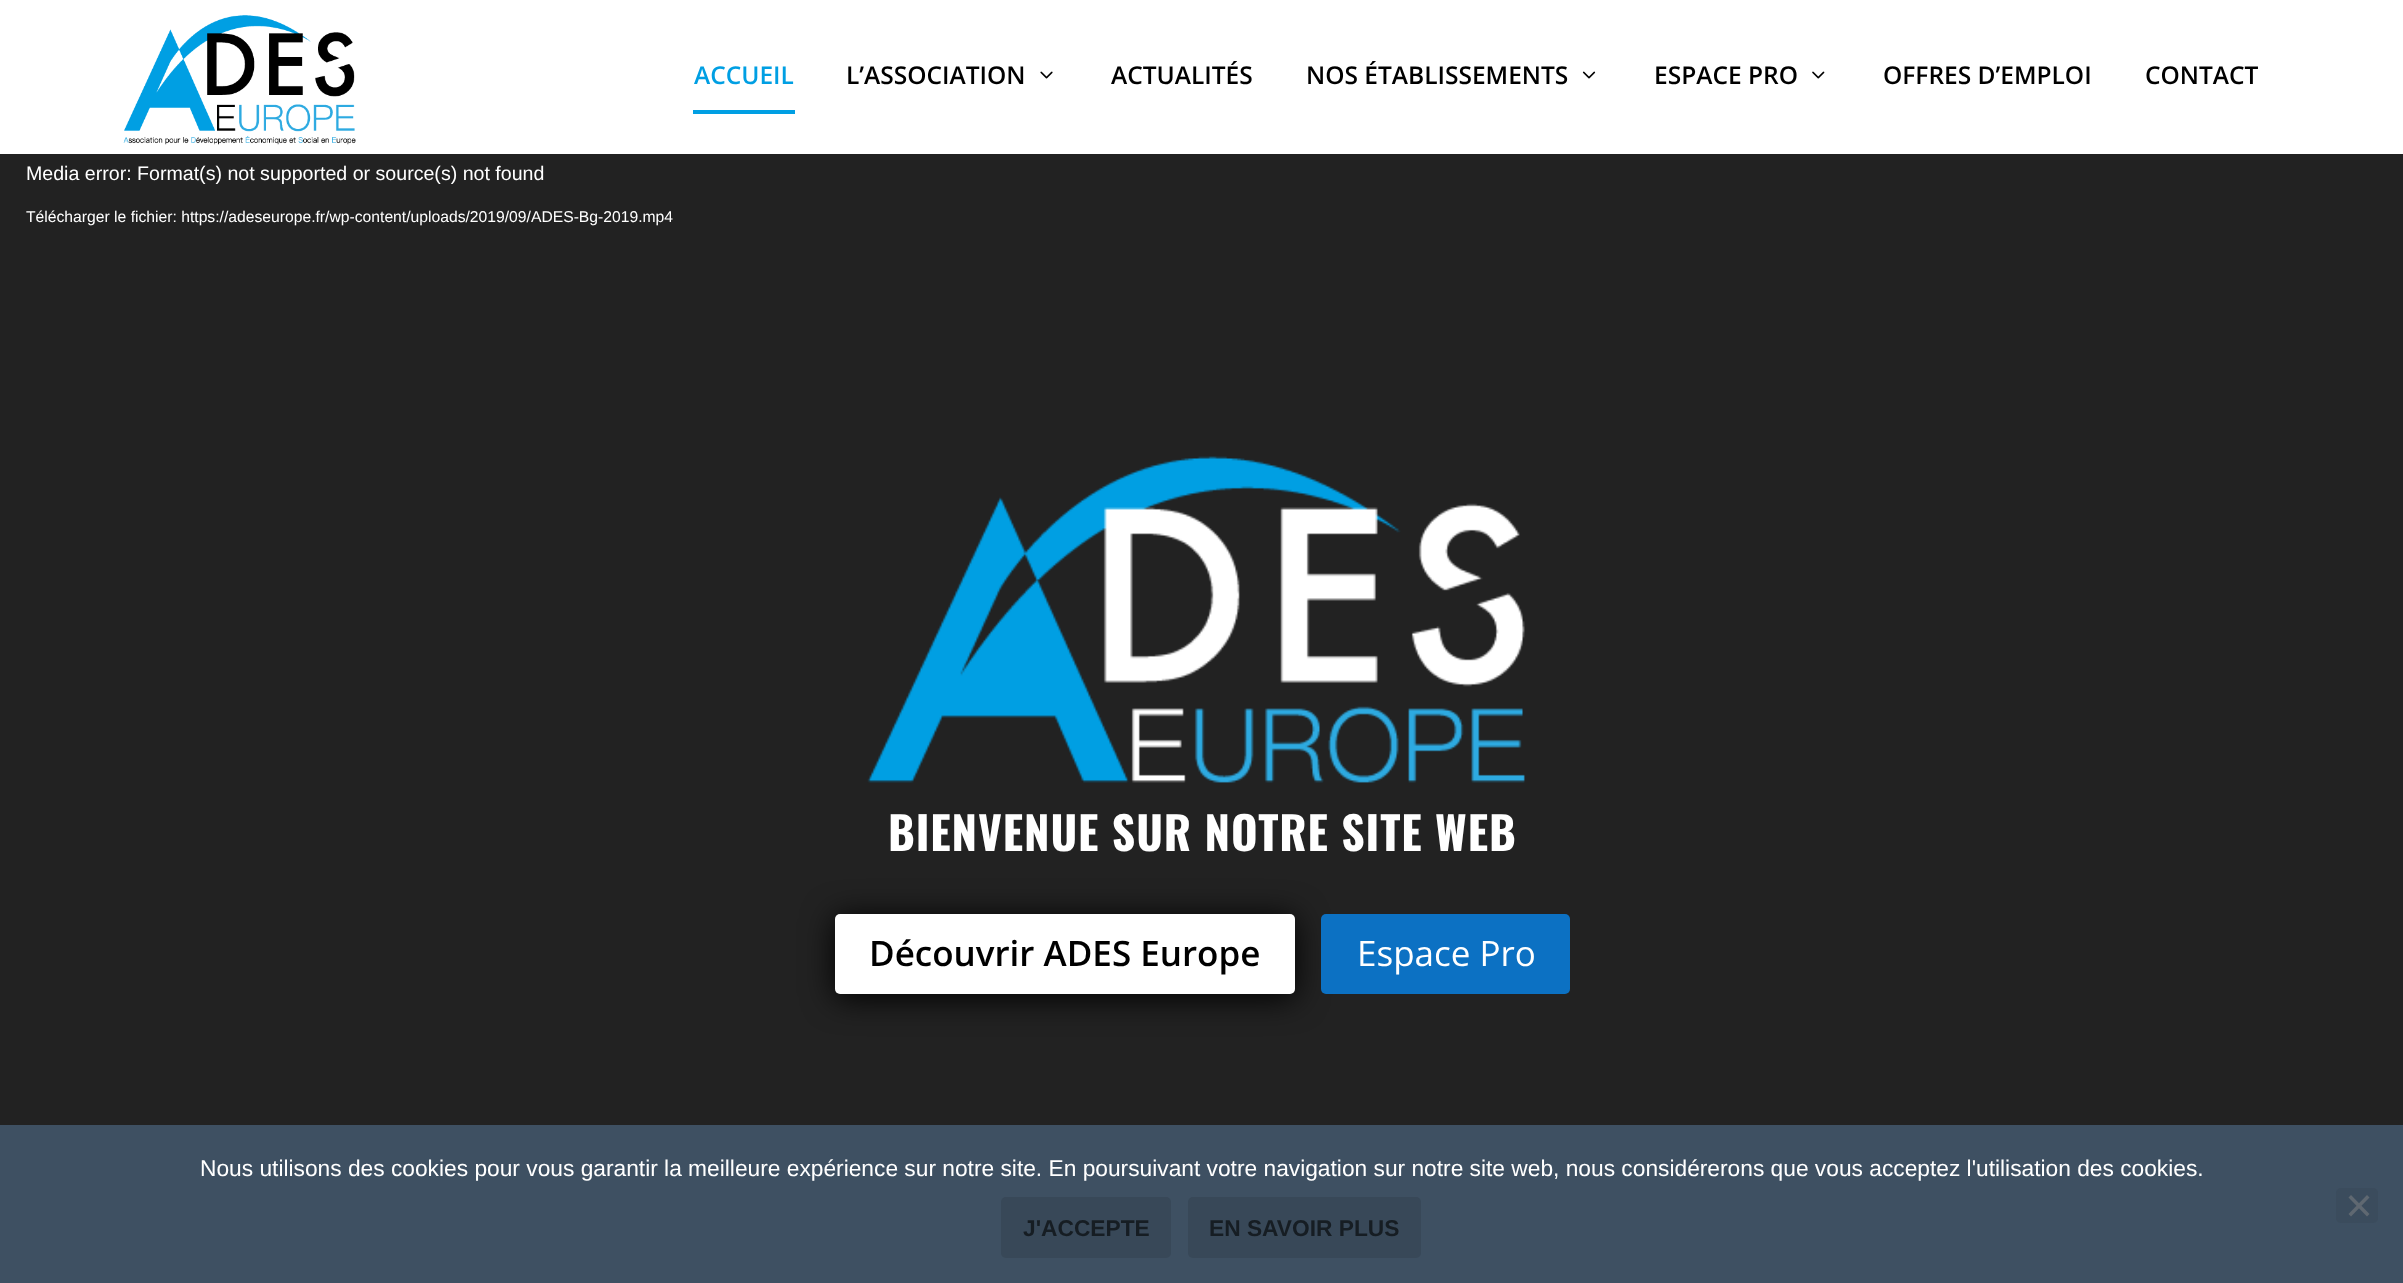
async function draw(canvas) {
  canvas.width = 2403;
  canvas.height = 1283;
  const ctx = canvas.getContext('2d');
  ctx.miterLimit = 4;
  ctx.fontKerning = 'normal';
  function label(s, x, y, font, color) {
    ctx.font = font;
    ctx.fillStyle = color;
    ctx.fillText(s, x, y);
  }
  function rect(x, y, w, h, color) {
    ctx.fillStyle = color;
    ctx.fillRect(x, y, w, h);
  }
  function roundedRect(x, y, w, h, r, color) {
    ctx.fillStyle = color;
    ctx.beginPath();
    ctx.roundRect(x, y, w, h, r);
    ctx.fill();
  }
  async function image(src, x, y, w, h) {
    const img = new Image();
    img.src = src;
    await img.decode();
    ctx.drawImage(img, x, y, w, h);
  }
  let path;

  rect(0, 0, 2403, 1283, '#222');
  rect(0, 0, 2403, 154, '#fff');
  await image('assets/img1.png', 123, 15, 233, 130);
  label('ACCUEIL', 694, 84, '600 24.5px Open Sans', '#009fe3');
  rect(693, 110, 102, 4, '#009fe3');
  label('L’ASSOCIATION', 846, 84, '600 24.5px Open Sans', '#000');
  await image('assets/img2.png', 1040, 71, 13, 8);
  label('ACTUALITÉS', 1111, 84, '600 24.5px Open Sans', '#000');
  label('NOS ÉTABLISSEMENTS', 1306, 84, '600 24.5px Open Sans', '#000');
  await image('assets/img3.png', 1582, 71, 14, 8);
  label('ESPACE PRO', 1654, 84, '600 24.5px Open Sans', '#000');
  await image('assets/img4.png', 1812, 71, 13, 8);
  label('OFFRES D’EMPLOI', 1883, 84, '600 24.5px Open Sans', '#000');
  label('CONTACT', 2145, 84, '600 24.5px Open Sans', '#000');
  label('Media error: Format(s) not supported or source(s) not found', 26, 180, '19.6px Liberation Sans', '#fff');
  label('Télécharger le fichier: https://adeseurope.fr/wp-content/uploads/2019/09/ADES-Bg-2019.mp4', 26, 222, '15.7px Liberation Sans', '#fff');
  await image('assets/img5.png', 867, 456, 658, 327);
  ctx.letterSpacing = '0.9px';
  label('BIENVENUE SUR NOTRE SITE WEB', 888, 851, 'bold 45.5px Oswald', '#fff');
  ctx.fillStyle = '#000';
  ctx.filter = 'blur(16px)';
  ctx.beginPath();
  ctx.roundRect(835, 917, 460, 81, 5);
  ctx.fill();
  ctx.filter = 'none';
  roundedRect(835, 914, 460, 80, 5, '#fff');
  ctx.letterSpacing = '0px';
  label('Découvrir ADES Europe', 869, 966, '600 35px Open Sans', '#000');
  roundedRect(1321, 914, 249, 80, 5, '#0c71c3');
  label('Espace Pro', 1357, 966, '35px Open Sans', '#fff');
  rect(0, 1125, 2403, 158, '#3e5062');
  label('Nous utilisons des cookies pour vous garantir la meilleure expérience sur notre site. En poursuivant votre navigation sur notre site web, nous considérerons que vous acceptez l\'utilisation des cookies.', 200, 1176, '22.75px Liberation Sans', '#fff');
  roundedRect(2336, 1188, 42, 35, 5, '#3b4c5d');
  ctx.fillStyle = '#5f6871';
  path = new Path2D('M2367 1195L2369.5 1197.5L2351 1216.5L2348.5 1214Z');
  ctx.fill(path);
  path = new Path2D('M2348.5 1197.5L2351 1195L2369.5 1214L2367 1216.5Z');
  ctx.fill(path);
  roundedRect(1001, 1197, 170, 61, 5, '#384858');
  label('J\'ACCEPTE', 1023, 1236, 'bold 22.75px Liberation Sans', '#161d23');
  roundedRect(1188, 1197, 233, 61, 5, '#384858');
  label('EN SAVOIR PLUS', 1209, 1236, 'bold 22.75px Liberation Sans', '#161d23');
}

draw(document.querySelector('canvas'));
